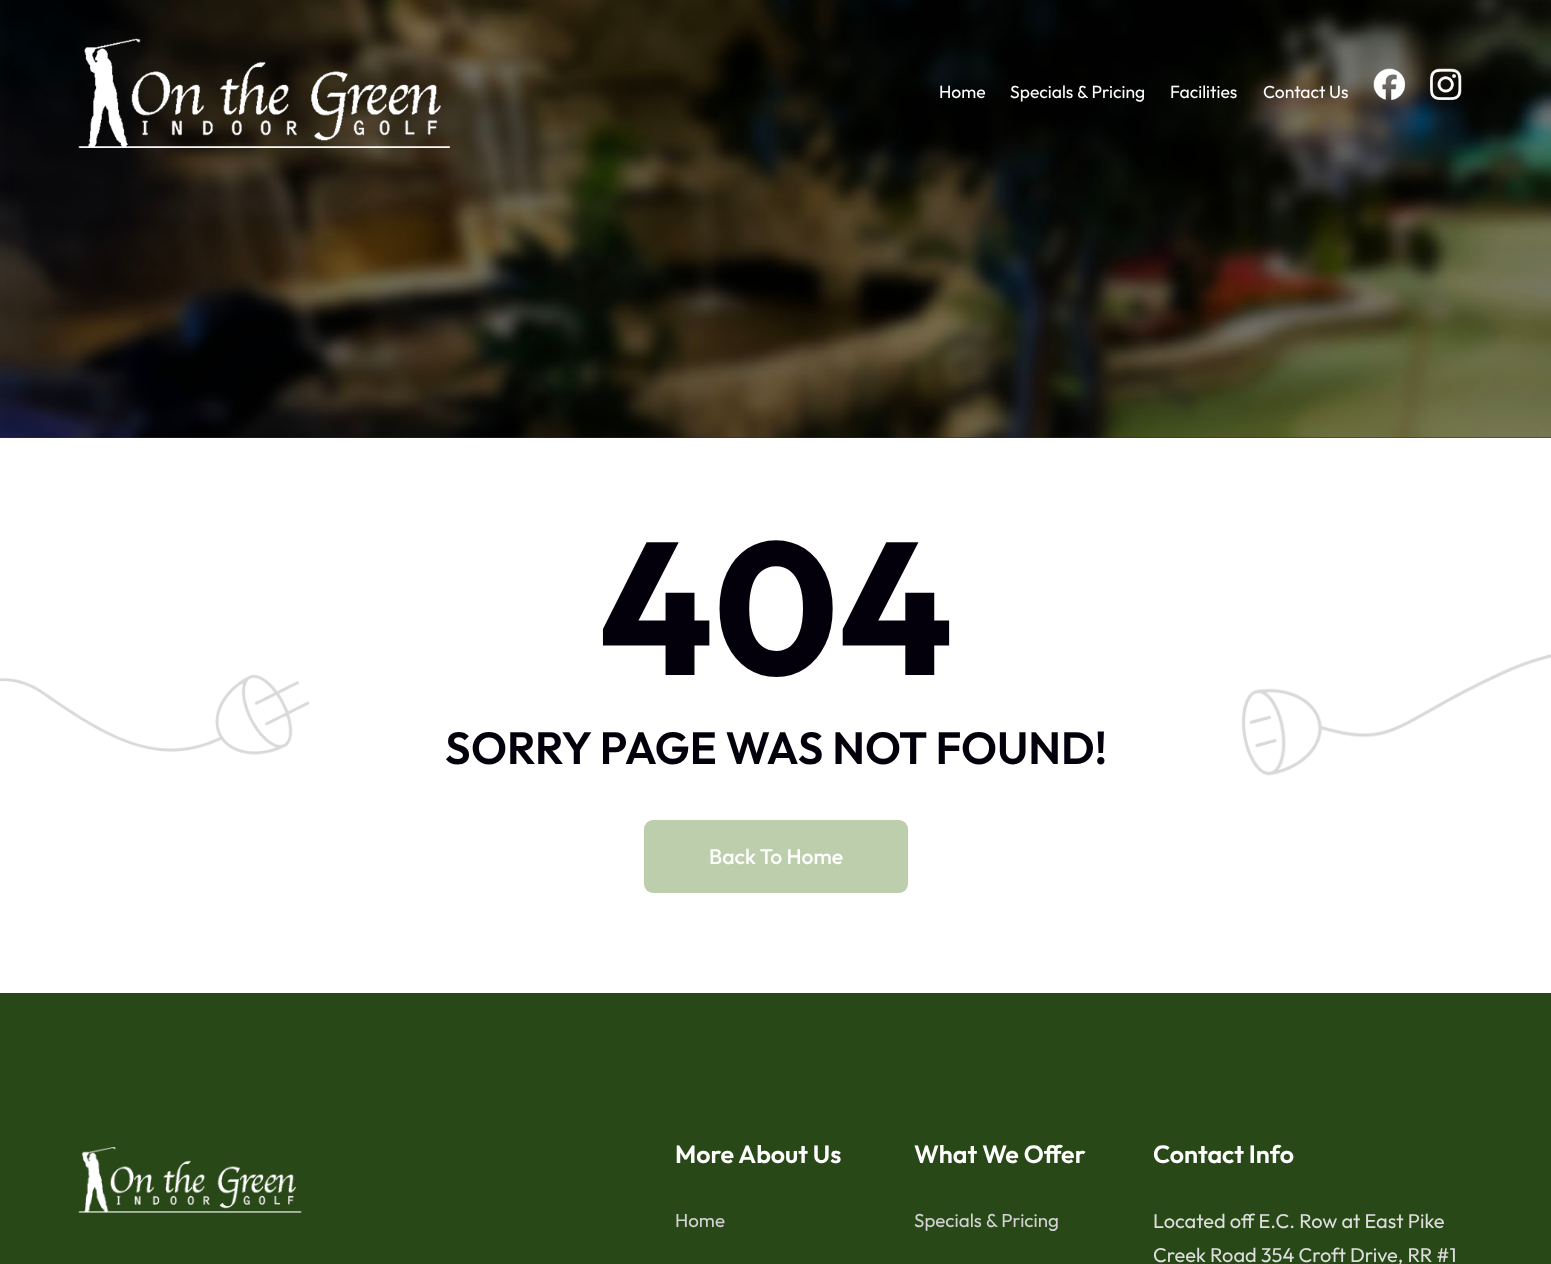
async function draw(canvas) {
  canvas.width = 1551;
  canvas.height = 1264;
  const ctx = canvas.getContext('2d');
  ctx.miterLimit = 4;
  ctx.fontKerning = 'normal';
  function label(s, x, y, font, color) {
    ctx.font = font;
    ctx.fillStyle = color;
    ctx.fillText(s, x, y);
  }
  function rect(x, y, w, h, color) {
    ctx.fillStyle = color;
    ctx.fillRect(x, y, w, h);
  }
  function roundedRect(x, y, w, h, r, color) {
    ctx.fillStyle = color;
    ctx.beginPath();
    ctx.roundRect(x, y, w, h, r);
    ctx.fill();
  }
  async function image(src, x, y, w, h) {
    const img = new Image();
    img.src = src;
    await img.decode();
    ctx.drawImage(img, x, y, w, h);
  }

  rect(0, 0, 1551, 1264, '#fff');
  rect(0, 437, 1551, 1, '#10393b');
  await image('assets/img1.png', 0, 0, 1551, 438);
  await image('assets/img2.png', 78, 38, 372, 110);
  label('Home', 939, 98, '100 17.5px Outfit', '#fff');
  label('Specials & Pricing', 1010, 98, '100 17.5px Outfit', '#fff');
  label('Facilities', 1170, 98, '100 17.5px Outfit', '#fff');
  label('Contact Us', 1263, 98, '100 17.5px Outfit', '#fff');
  await image('assets/img3.png', 1373, 68, 32, 32);
  await image('assets/img4.png', 1430, 68, 32, 32);
  await image('assets/img5.png', 0, 675, 310, 80);
  label('404', 599, 675, 'bold 188px Outfit', '#04000b');
  label('SORRY PAGE WAS NOT FOUND!', 445, 764, '600 45px Outfit', '#04000b');
  roundedRect(644, 820, 264, 73, 9, '#bcceab');
  label('Back To Home', 709, 864, '500 21.25px Outfit', '#fff');
  await image('assets/img6.png', 1241, 654, 310, 122);
  rect(0, 993, 1551, 271, '#294817');
  await image('assets/img7.png', 78, 1147, 224, 66);
  label('More About Us', 675, 1163, '600 25px Outfit', '#fff');
  label('Home', 675, 1227, '100 18.75px Outfit', '#d2d2d4');
  label('What We Offer', 914, 1163, '600 25px Outfit', '#fff');
  label('Specials & Pricing', 914, 1227, '100 18.75px Outfit', '#d2d2d4');
  label('Contact Info', 1153, 1163, '600 25px Outfit', '#fff');
  label('Located off E.C. Row at East Pike', 1153, 1228, '100 20px Outfit', '#dedede');
  label('Creek Road 354 Croft Drive, RR #1', 1153, 1262, '100 20px Outfit', '#dedede');
}

draw(document.querySelector('canvas'));
